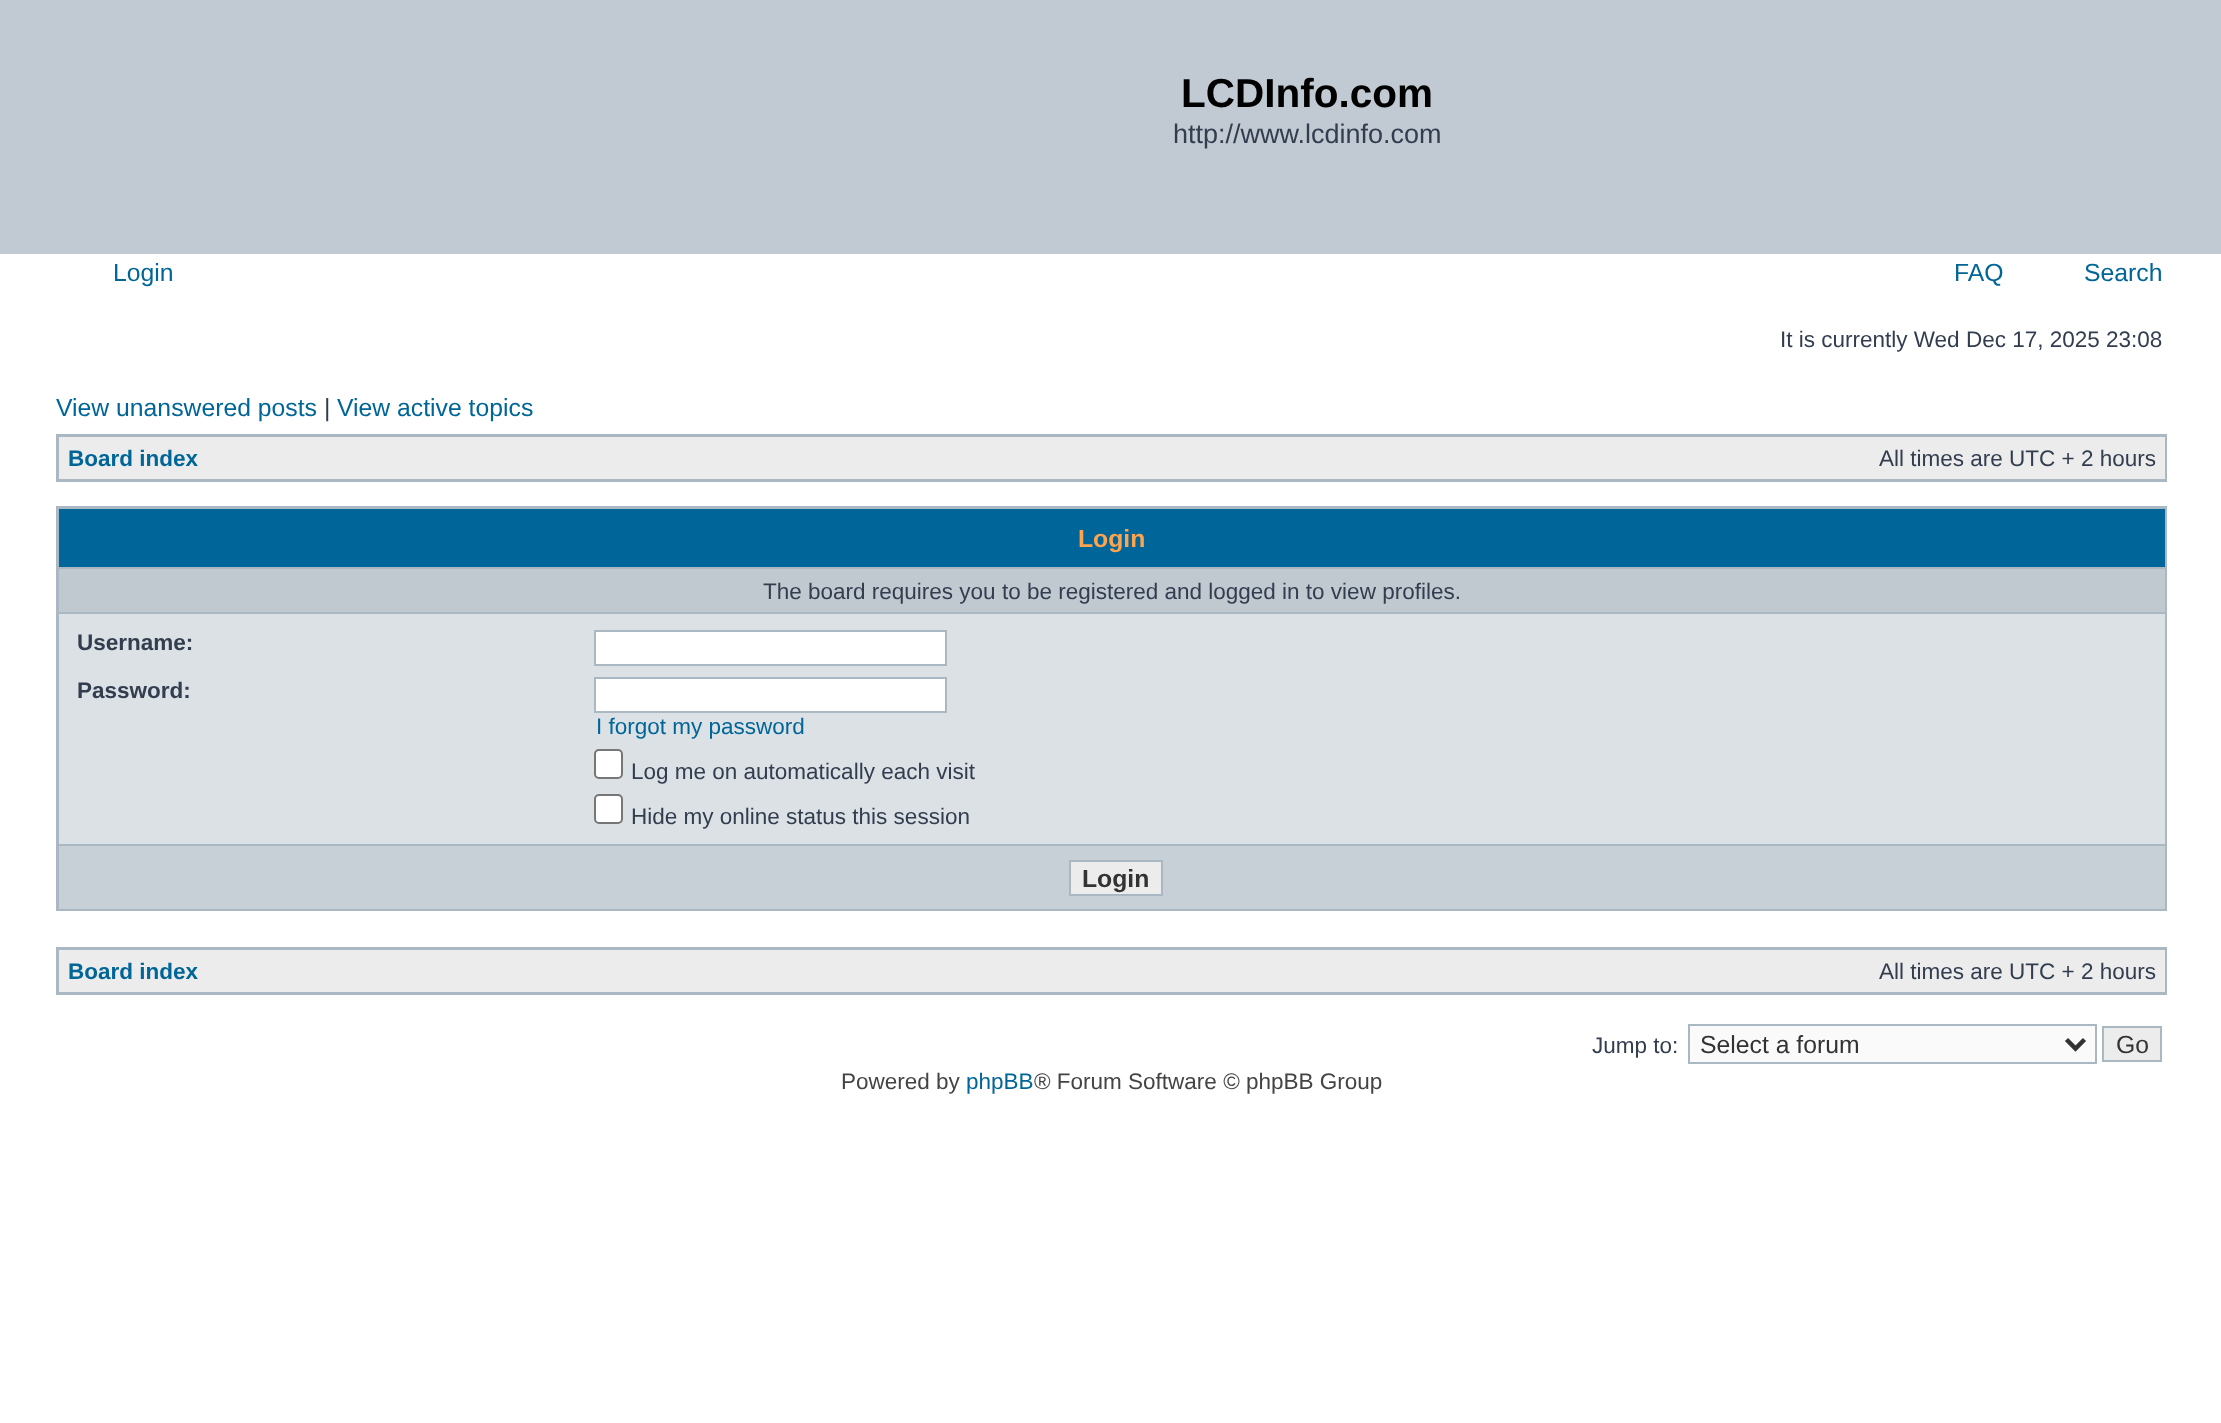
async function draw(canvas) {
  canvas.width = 2221;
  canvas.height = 1423;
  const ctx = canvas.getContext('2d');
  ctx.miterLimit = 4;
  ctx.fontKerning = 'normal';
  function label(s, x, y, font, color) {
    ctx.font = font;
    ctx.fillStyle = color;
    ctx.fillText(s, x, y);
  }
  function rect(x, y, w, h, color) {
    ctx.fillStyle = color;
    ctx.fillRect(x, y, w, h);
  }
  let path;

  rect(0, 0, 2221, 1423, '#fff');
  rect(0, 0, 2221, 254, '#c1cad2');
  label('LCDInfo.com', 1181, 107, 'bold 40.5px Liberation Sans', '#000');
  label('http://www.lcdinfo.com', 1173, 143, '27px Liberation Sans', '#323d4f');
  label('Login', 113, 281, '24.75px Liberation Sans', '#006597');
  label('FAQ', 1954, 281, '24.75px Liberation Sans', '#006597');
  label('Search', 2084, 281, '24.75px Liberation Sans', '#006597');
  label('It is currently Wed Dec 17, 2025 23:08', 1780, 347, '22.5px Liberation Sans', '#323d4f');
  label('View unanswered posts', 56, 416, '24.75px Liberation Sans', '#006597');
  label('|', 324, 416, '24.75px Liberation Sans', '#323d4f');
  label('View active topics', 337, 416, '24.75px Liberation Sans', '#006597');
  rect(56, 434, 2111, 48, '#a9b8c2');
  rect(59, 437, 2106, 42, '#ececec');
  label('Board index', 68, 466, 'bold 22.5px Liberation Sans', '#006597');
  label('All times are UTC + 2 hours', 1879, 466, '22.5px Liberation Sans', '#323d4f');
  rect(56, 506, 2111, 405, '#a9b8c2');
  rect(59, 509, 2106, 58, '#069');
  label('Login', 1078, 547, 'bold 24.75px Liberation Sans', '#ffa34f');
  rect(59, 569, 2106, 43, '#c0c8d0');
  label('The board requires you to be registered and logged in to view profiles.', 763, 599, '22.5px Liberation Sans', '#323d4f');
  rect(59, 614, 2106, 230, '#dce1e5');
  label('Username:', 77, 650, 'bold 22.5px Liberation Sans', '#323d4f');
  ctx.fillStyle = '#fff';
  ctx.beginPath();
  ctx.rect(595, 631, 351, 34);
  ctx.fill();
  ctx.strokeStyle = '#a9b8c2';
  ctx.lineWidth = 2;
  ctx.stroke();
  label('Password:', 77, 698, 'bold 22.5px Liberation Sans', '#323d4f');
  ctx.fillStyle = '#fff';
  ctx.beginPath();
  ctx.rect(595, 678, 351, 34);
  ctx.fill();
  ctx.stroke();
  label('I forgot my password', 596, 734, '22.5px Liberation Sans', '#006597');
  ctx.fillStyle = '#fff';
  ctx.beginPath();
  ctx.roundRect(595, 750, 27, 28, 4);
  ctx.fill();
  ctx.strokeStyle = '#767676';
  ctx.stroke();
  label('Log me on automatically each visit', 631, 779, '22.5px Liberation Sans', '#323d4f');
  ctx.fillStyle = '#fff';
  ctx.beginPath();
  ctx.roundRect(595, 795, 27, 28, 4);
  ctx.fill();
  ctx.stroke();
  label('Hide my online status this session', 631, 824, '22.5px Liberation Sans', '#323d4f');
  rect(59, 846, 2106, 63, '#c7d0d7');
  ctx.fillStyle = '#ececec';
  ctx.beginPath();
  ctx.rect(1070, 861, 92, 34);
  ctx.fill();
  ctx.strokeStyle = '#a9b8c2';
  ctx.stroke();
  label('Login', 1082, 887, 'bold 24.75px Liberation Sans', '#333');
  rect(56, 947, 2111, 48, '#a9b8c2');
  rect(59, 950, 2106, 42, '#ececec');
  label('Board index', 68, 979, 'bold 22.5px Liberation Sans', '#006597');
  label('All times are UTC + 2 hours', 1879, 979, '22.5px Liberation Sans', '#323d4f');
  label('Jump to:', 1592, 1053, '22.5px Liberation Sans', '#323d4f');
  ctx.fillStyle = '#fafafa';
  ctx.beginPath();
  ctx.rect(1689, 1025, 407, 38);
  ctx.fill();
  ctx.stroke();
  path = new Path2D('M2066.5 1039.5L2075.5 1048.5L2084.5 1039.5');
  ctx.strokeStyle = '#333';
  ctx.lineWidth = 4.5;
  ctx.stroke(path);
  label('Select a forum', 1700, 1053, '24.75px Liberation Sans', '#333');
  ctx.fillStyle = '#ececec';
  ctx.beginPath();
  ctx.rect(2103, 1027, 58, 34);
  ctx.fill();
  ctx.strokeStyle = '#a9b8c2';
  ctx.lineWidth = 2;
  ctx.stroke();
  label('Go', 2116, 1053, '24.75px Liberation Sans', '#333');
  label('Powered by', 841, 1089, '22.5px Liberation Sans', '#444');
  label('phpBB', 966, 1089, '22.5px Liberation Sans', '#006597');
  label('® Forum Software © phpBB Group', 1034, 1089, '22.5px Liberation Sans', '#444');
}

draw(document.querySelector('canvas'));
